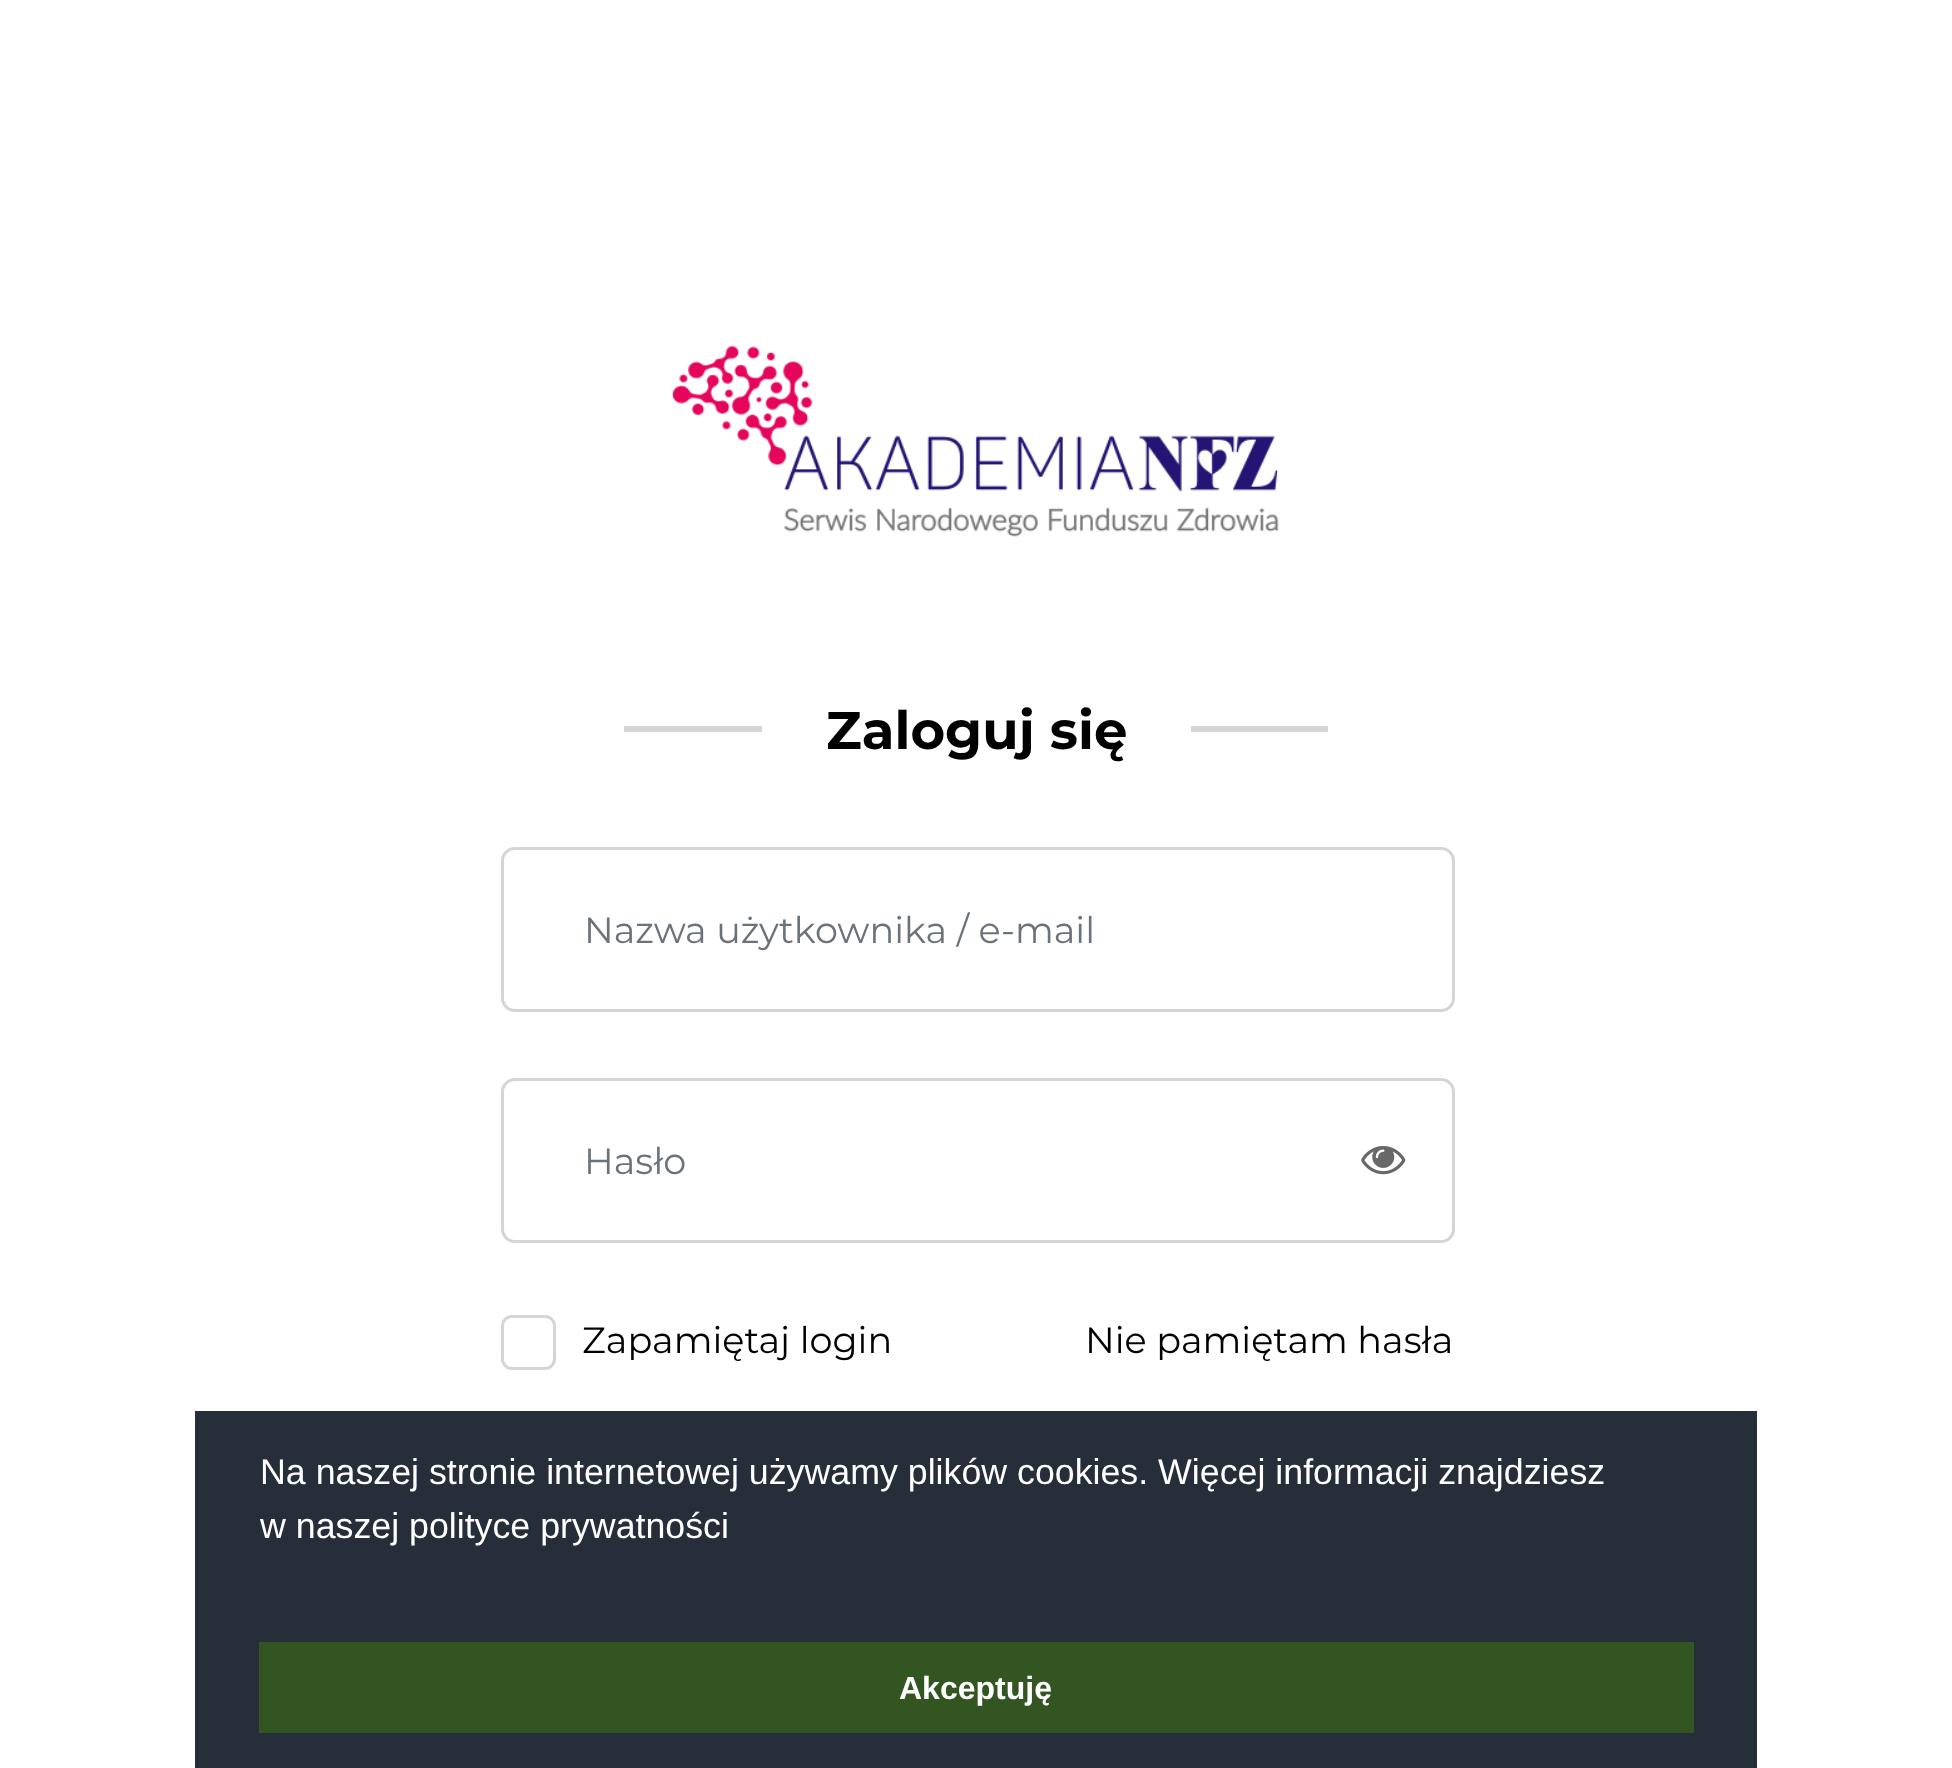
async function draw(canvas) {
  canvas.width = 1952;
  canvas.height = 1768;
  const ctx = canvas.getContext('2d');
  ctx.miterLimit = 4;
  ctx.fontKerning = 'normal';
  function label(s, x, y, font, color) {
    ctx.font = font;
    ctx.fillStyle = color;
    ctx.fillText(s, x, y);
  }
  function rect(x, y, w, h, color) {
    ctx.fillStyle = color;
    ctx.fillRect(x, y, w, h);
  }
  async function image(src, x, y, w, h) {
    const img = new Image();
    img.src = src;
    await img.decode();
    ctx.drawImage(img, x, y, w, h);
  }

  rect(0, 0, 1952, 1768, '#fff');
  await image('assets/img1.png', 671, 345, 608, 192);
  rect(624, 726, 138, 6, '#d5d5d5');
  label('Zaloguj się', 826, 749, 'bold 53px Montserrat', '#000');
  rect(1191, 726, 137, 6, '#d5d5d5');
  ctx.beginPath();
  ctx.roundRect(502.5, 848.5, 951, 162, 12.5);
  ctx.strokeStyle = '#d5d5d5';
  ctx.lineWidth = 3;
  ctx.stroke();
  label('Nazwa użytkownika / e-mail', 584, 943, '36.6px Montserrat', '#6a737b');
  ctx.beginPath();
  ctx.roundRect(502.5, 1079.5, 951, 162, 12.5);
  ctx.stroke();
  label('Hasło', 584, 1174, '36.6px Montserrat', '#6a737b');
  await image('assets/img2.png', 1361, 1146, 45, 29);
  ctx.beginPath();
  ctx.roundRect(502.5, 1316.5, 52, 52, 9.5);
  ctx.stroke();
  label('Zapamiętaj login', 582, 1353, '36.6px Montserrat', '#000');
  label('Nie pamiętam hasła', 1085, 1353, '36.6px Montserrat', '#000');
  rect(195, 1411, 1562, 357, '#252e39');
  label('Na naszej stronie internetowej używamy plików cookies. Więcej informacji znajdziesz', 260, 1484, '35.75px Liberation Sans', '#fff');
  label('w naszej polityce prywatności', 260, 1538, '35.75px Liberation Sans', '#fff');
  rect(259, 1642, 1435, 91, '#352');
  label('Akceptuję', 899, 1699, 'bold 32px Liberation Sans', '#fff');
}

draw(document.querySelector('canvas'));
